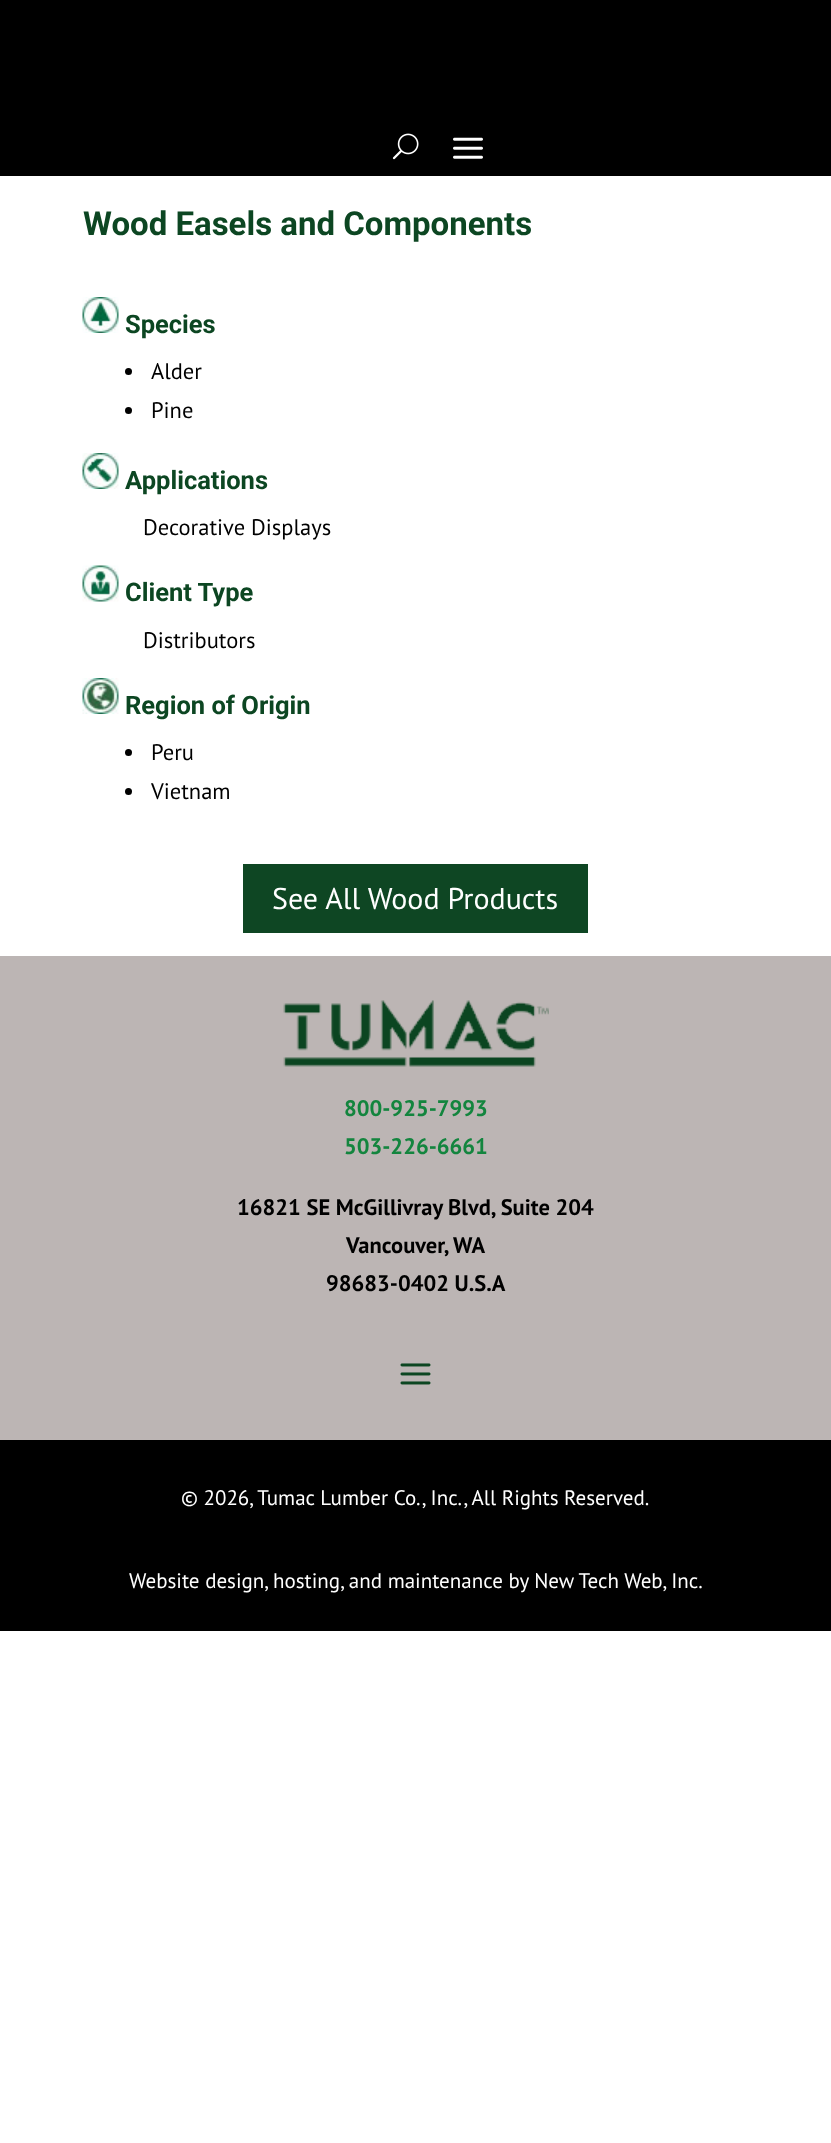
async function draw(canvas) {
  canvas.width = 831;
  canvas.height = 2143;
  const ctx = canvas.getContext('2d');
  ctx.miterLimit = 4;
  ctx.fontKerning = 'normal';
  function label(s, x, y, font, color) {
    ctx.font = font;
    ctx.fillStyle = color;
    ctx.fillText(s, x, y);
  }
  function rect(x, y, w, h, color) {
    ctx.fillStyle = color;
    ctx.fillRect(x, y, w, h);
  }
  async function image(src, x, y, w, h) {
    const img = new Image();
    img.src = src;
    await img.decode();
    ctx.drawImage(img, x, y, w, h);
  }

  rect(0, 0, 831, 2143, '#fff');
  rect(0, 0, 831, 176, '#000');
  await image('assets/img1.png', 392, 133, 27, 27);
  await image('assets/img2.png', 453, 137, 30, 22);
  label('Wood Easels and Components', 83, 235, 'bold 33px Roboto', '#0c4622');
  await image('assets/img3.png', 82, 297, 37, 36);
  label('Species', 125, 333, 'bold 25.5px Roboto', '#0c4622');
  ctx.fillStyle = '#000';
  ctx.beginPath();
  ctx.arc(128.5, 371.5, 3.5, 0, 2 * Math.PI);
  ctx.fill();
  label('Alder', 151, 379, '22.5px PT Sans', '#000');
  ctx.beginPath();
  ctx.arc(128.5, 410.5, 3.5, 0, 2 * Math.PI);
  ctx.fill();
  label('Pine', 151, 418, '22.5px PT Sans', '#000');
  await image('assets/img4.png', 82, 453, 37, 36);
  label('Applications', 125, 489, 'bold 25.5px Roboto', '#0c4622');
  label('Decorative Displays', 143, 535, '22.5px PT Sans', '#000');
  await image('assets/img5.png', 82, 565, 37, 37);
  label('Client Type', 125, 601, 'bold 25.5px Roboto', '#0c4622');
  label('Distributors', 143, 648, '22.5px PT Sans', '#000');
  await image('assets/img6.png', 82, 678, 37, 36);
  label('Region of Origin', 125, 714, 'bold 25.5px Roboto', '#0c4622');
  ctx.fillStyle = '#000';
  ctx.beginPath();
  ctx.arc(128.5, 752.5, 3.5, 0, 2 * Math.PI);
  ctx.fill();
  label('Peru', 151, 760, '22.5px PT Sans', '#000');
  ctx.beginPath();
  ctx.arc(128.5, 791.5, 3.5, 0, 2 * Math.PI);
  ctx.fill();
  label('Vietnam', 151, 799, '22.5px PT Sans', '#000');
  rect(243, 864, 345, 69, '#0e4623');
  label('See All Wood Products', 272, 909, '30px PT Sans', '#fff');
  rect(0, 956, 831, 484, '#bcb5b4');
  await image('assets/img7.png', 283, 1000, 266, 67);
  label('800-925-7993', 344, 1116, 'bold 22.5px PT Sans', '#13853e');
  label('503-226-6661', 344, 1154, 'bold 22.5px PT Sans', '#13853e');
  label('16821 SE McGillivray Blvd, Suite 204', 237, 1215, 'bold 22.5px PT Sans', '#000');
  label('Vancouver, WA', 346, 1253, 'bold 22.5px PT Sans', '#000');
  label('98683-0402 U.S.A', 326, 1291, 'bold 22.5px PT Sans', '#000');
  await image('assets/img8.png', 400, 1363, 31, 22);
  rect(0, 1440, 831, 191, '#000');
  label('© 2026, Tumac Lumber Co., Inc., All Rights Reserved.', 181, 1505, '21px PT Sans', '#fff');
  label('Website design, hosting, and maintenance by New Tech Web, Inc.', 129, 1588, '21px PT Sans', '#fff');
}

draw(document.querySelector('canvas'));
